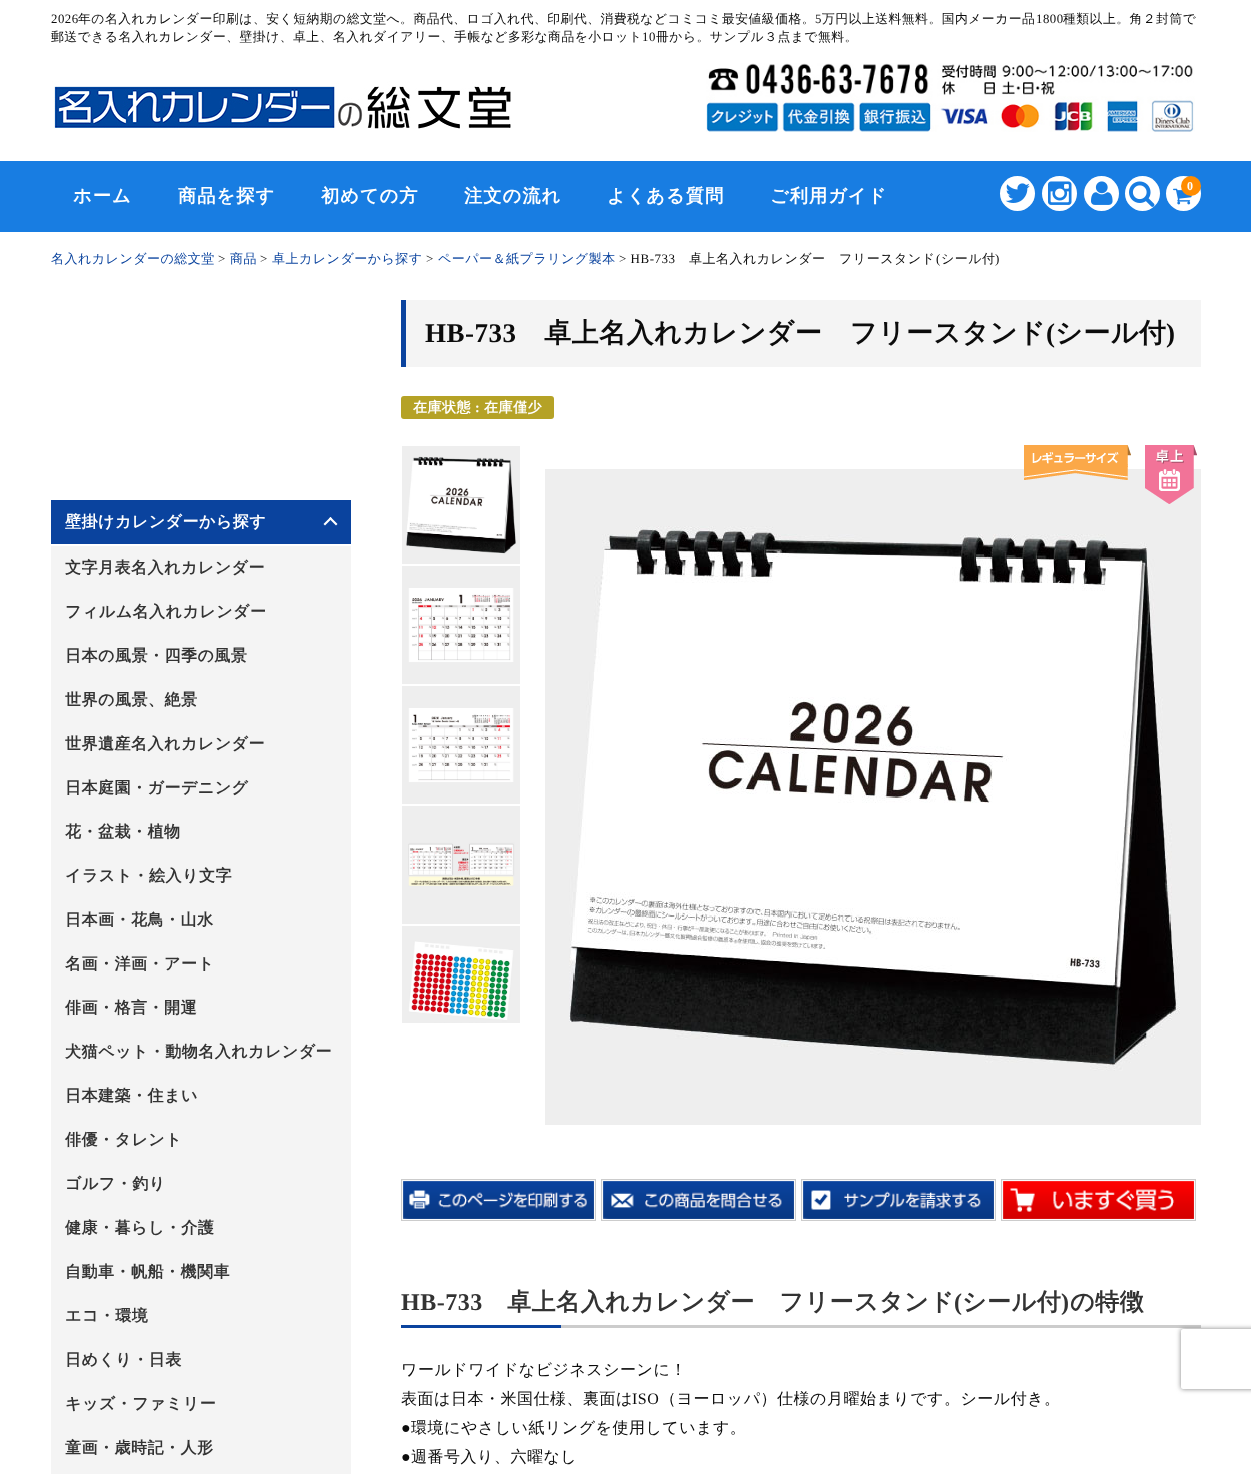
async function draw(canvas) {
  canvas.width = 1251;
  canvas.height = 1474;
  const ctx = canvas.getContext('2d');
  ctx.miterLimit = 4;
  ctx.fontKerning = 'normal';
  function label(s, x, y, font, color) {
    ctx.font = font;
    ctx.fillStyle = color;
    ctx.fillText(s, x, y);
  }
  function rect(x, y, w, h, color) {
    ctx.fillStyle = color;
    ctx.fillRect(x, y, w, h);
  }
  function roundedRect(x, y, w, h, r, color) {
    ctx.fillStyle = color;
    ctx.beginPath();
    ctx.roundRect(x, y, w, h, r);
    ctx.fill();
  }
  async function image(src, x, y, w, h) {
    const img = new Image();
    img.src = src;
    await img.decode();
    ctx.drawImage(img, x, y, w, h);
  }
  let path;

  rect(0, 0, 1251, 1474, '#fff');
  ctx.letterSpacing = '0.5px';
  label('2026', 51, 23, '12.8px Liberation Serif', '#0c0c0c');
  label('年の名入れカレンダー印刷は、安く短納期の総文堂へ。商品代、ロゴ入れ代、印刷代、消費税などコミコミ最安値級価格。', 78, 23, '500 12.8px WenQuanYi Zen Hei', '#0c0c0c');
  label('5', 815, 23, '12.8px Liberation Serif', '#0c0c0c');
  label('万円以上送料無料。国内メーカー品', 822, 23, '500 12.8px WenQuanYi Zen Hei', '#0c0c0c');
  label('1800', 1036, 23, '12.8px Liberation Serif', '#0c0c0c');
  label('種類以上。角２封筒で', 1063, 23, '500 12.8px WenQuanYi Zen Hei', '#0c0c0c');
  label('郵送できる名入れカレンダー、壁掛け、卓上、名入れダイアリー、手帳など多彩な商品を小ロット', 51, 41, '500 12.8px WenQuanYi Zen Hei', '#0c0c0c');
  label('10', 642, 41, '12.8px Liberation Serif', '#0c0c0c');
  label('冊から。サンプル３点まで無料。', 656, 41, '500 12.8px WenQuanYi Zen Hei', '#0c0c0c');
  await image('assets/img1.png', 52, 81, 459, 48);
  await image('assets/img2.png', 706, 63, 489, 69);
  rect(0, 161, 1251, 71, '#187de2');
  ctx.letterSpacing = '1px';
  label('ホーム', 73, 202, 'bold 18.25px WenQuanYi Zen Hei', '#fff');
  label('商品を探す', 178, 202, 'bold 18.25px WenQuanYi Zen Hei', '#fff');
  label('初めての方', 321, 202, 'bold 18.25px WenQuanYi Zen Hei', '#fff');
  label('注文の流れ', 464, 202, 'bold 18.25px WenQuanYi Zen Hei', '#fff');
  label('よくある質問', 607, 202, 'bold 18.25px WenQuanYi Zen Hei', '#fff');
  label('ご利用ガイド', 770, 202, 'bold 18.25px WenQuanYi Zen Hei', '#fff');
  ctx.beginPath();
  ctx.arc(1017.5, 193.5, 17.5, 0, 2 * Math.PI);
  ctx.fill();
  await image('assets/img3.png', 1005, 183, 25, 20);
  ctx.beginPath();
  ctx.arc(1059.5, 193.5, 17.5, 0, 2 * Math.PI);
  ctx.fill();
  await image('assets/img4.png', 1048, 181, 24, 24);
  ctx.beginPath();
  ctx.arc(1101.5, 193.5, 17.5, 0, 2 * Math.PI);
  ctx.fill();
  await image('assets/img5.png', 1091, 181, 22, 24);
  ctx.beginPath();
  ctx.arc(1142.5, 193.5, 17.5, 0, 2 * Math.PI);
  ctx.fill();
  await image('assets/img6.png', 1129, 181, 26, 26);
  ctx.beginPath();
  ctx.arc(1183.5, 193.5, 17.5, 0, 2 * Math.PI);
  ctx.fill();
  await image('assets/img7.png', 1173, 188, 19, 17);
  ctx.fillStyle = '#ff8c00';
  ctx.beginPath();
  ctx.arc(1191, 186, 10, 0, 2 * Math.PI);
  ctx.fill();
  label('0', 1187, 190, 'bold 12px Liberation Serif', '#fff');
  ctx.letterSpacing = '0.5px';
  label('名入れカレンダーの総文堂', 51, 263, '500 13px WenQuanYi Zen Hei', '#0a439e');
  label('>', 218, 263, '13px Liberation Serif', '#0c0c0c');
  label('商品', 230, 263, '500 13px WenQuanYi Zen Hei', '#0a439e');
  label('>', 260, 263, '13px Liberation Serif', '#0c0c0c');
  label('卓上カレンダーから探す', 272, 263, '500 13px WenQuanYi Zen Hei', '#0a439e');
  label('>', 426, 263, '13px Liberation Serif', '#0c0c0c');
  label('ペーパー＆紙プラリング製本', 438, 263, '500 13px WenQuanYi Zen Hei', '#0a439e');
  label('> HB-733', 619, 263, '13px Liberation Serif', '#0c0c0c');
  label('卓上名入れカレンダー　フリースタンド', 689, 263, '500 13px WenQuanYi Zen Hei', '#0c0c0c');
  label('(', 936, 263, '13px Liberation Serif', '#0c0c0c');
  label('シール付', 941, 263, '500 13px WenQuanYi Zen Hei', '#0c0c0c');
  label(')', 995, 263, '13px Liberation Serif', '#0c0c0c');
  rect(51, 500, 300, 44, '#0a439e');
  label('壁掛けカレンダーから探す', 65, 527, 'bold 16px WenQuanYi Zen Hei', '#fff');
  path = new Path2D('M323.5 524L330.5 517L332 518.5L325 525.5Z');
  ctx.fill(path);
  path = new Path2D('M329 518.5L330.5 517L337.5 524L336 525.5Z');
  ctx.fill(path);
  rect(51, 546, 300, 928, '#f4f4f4');
  label('文字月表名入れカレンダー', 65, 573, 'bold 16px WenQuanYi Zen Hei', '#333');
  label('フィルム名入れカレンダー', 65, 617, 'bold 16px WenQuanYi Zen Hei', '#333');
  label('日本の風景・四季の風景', 65, 661, 'bold 16px WenQuanYi Zen Hei', '#333');
  label('世界の風景、絶景', 65, 705, 'bold 16px WenQuanYi Zen Hei', '#333');
  label('世界遺産名入れカレンダー', 65, 749, 'bold 16px WenQuanYi Zen Hei', '#333');
  label('日本庭園・ガーデニング', 65, 793, 'bold 16px WenQuanYi Zen Hei', '#333');
  label('花・盆栽・植物', 65, 837, 'bold 16px WenQuanYi Zen Hei', '#333');
  label('イラスト・絵入り文字', 65, 881, 'bold 16px WenQuanYi Zen Hei', '#333');
  label('日本画・花鳥・山水', 65, 925, 'bold 16px WenQuanYi Zen Hei', '#333');
  label('名画・洋画・アート', 65, 969, 'bold 16px WenQuanYi Zen Hei', '#333');
  label('俳画・格言・開運', 65, 1013, 'bold 16px WenQuanYi Zen Hei', '#333');
  label('犬猫ペット・動物名入れカレンダー', 65, 1057, 'bold 16px WenQuanYi Zen Hei', '#333');
  label('日本建築・住まい', 65, 1101, 'bold 16px WenQuanYi Zen Hei', '#333');
  label('俳優・タレント', 65, 1145, 'bold 16px WenQuanYi Zen Hei', '#333');
  label('ゴルフ・釣り', 65, 1189, 'bold 16px WenQuanYi Zen Hei', '#333');
  label('健康・暮らし・介護', 65, 1233, 'bold 16px WenQuanYi Zen Hei', '#333');
  label('自動車・帆船・機関車', 65, 1277, 'bold 16px WenQuanYi Zen Hei', '#333');
  label('エコ・環境', 65, 1321, 'bold 16px WenQuanYi Zen Hei', '#333');
  label('日めくり・日表', 65, 1365, 'bold 16px WenQuanYi Zen Hei', '#333');
  label('キッズ・ファミリー', 65, 1409, 'bold 16px WenQuanYi Zen Hei', '#333');
  label('童画・歳時記・人形', 65, 1453, 'bold 16px WenQuanYi Zen Hei', '#333');
  rect(406, 300, 795, 67, '#f4f4f4');
  rect(401, 300, 5, 67, '#0a439e');
  label('HB-733', 425, 342, 'bold 27px Liberation Serif', '#0c0c0c');
  label('卓上名入れカレンダー　フリースタンド', 544, 342, 'bold 27px WenQuanYi Zen Hei', '#0c0c0c');
  label('(', 1046, 342, 'bold 27px Liberation Serif', '#0c0c0c');
  label('シール付', 1055, 342, 'bold 27px WenQuanYi Zen Hei', '#0c0c0c');
  label(')', 1166, 342, 'bold 27px Liberation Serif', '#0c0c0c');
  roundedRect(401, 396, 153, 23, 3, '#b5a226');
  label('在庫状態', 413, 412, 'bold 14px WenQuanYi Zen Hei', '#fff');
  label(':', 475, 412, 'bold 14px Liberation Serif', '#fff');
  label('在庫僅少', 484, 412, 'bold 14px WenQuanYi Zen Hei', '#fff');
  await image('assets/img8.png', 402, 446, 118, 118);
  await image('assets/img9.png', 402, 566, 118, 118);
  await image('assets/img10.png', 402, 686, 118, 118);
  await image('assets/img11.png', 402, 806, 118, 118);
  await image('assets/img12.png', 402, 926, 118, 97);
  await image('assets/img15.png', 545, 469, 656, 656);
  await image('assets/img13.png', 1024, 445, 107, 35);
  await image('assets/img14.png', 1145, 445, 52, 59);
  await image('assets/img16.png', 401, 1179, 195, 42);
  await image('assets/img17.png', 601, 1179, 195, 42);
  await image('assets/img18.png', 801, 1179, 195, 42);
  await image('assets/img19.png', 1001, 1179, 195, 42);
  rect(561, 1325, 640, 3, '#ccc');
  label('HB-733', 401, 1310, 'bold 24px Liberation Serif', '#333');
  label('卓上名入れカレンダー　フリースタンド', 507, 1310, 'bold 24px WenQuanYi Zen Hei', '#333');
  label('(', 954, 1310, 'bold 24px Liberation Serif', '#333');
  label('シール付', 962, 1310, 'bold 24px WenQuanYi Zen Hei', '#333');
  label(')', 1061, 1310, 'bold 24px Liberation Serif', '#333');
  label('の特徴', 1070, 1310, 'bold 24px WenQuanYi Zen Hei', '#333');
  rect(401, 1325, 160, 3, '#0a439e');
  label('ワールドワイドなビジネスシーンに！', 401, 1375, '500 16px WenQuanYi Zen Hei', '#0c0c0c');
  label('表面は日本・米国仕様、裏面は', 401, 1404, '500 16px WenQuanYi Zen Hei', '#0c0c0c');
  label('ISO', 632, 1404, '16px Liberation Serif', '#0c0c0c');
  label('（ヨーロッパ）仕様の月曜始まりです。シール付き。', 660, 1404, '500 16px WenQuanYi Zen Hei', '#0c0c0c');
  label('●', 401, 1433, '16px Liberation Serif', '#0c0c0c');
  label('環境にやさしい紙リングを使用しています。', 411, 1433, '500 16px WenQuanYi Zen Hei', '#0c0c0c');
  label('●', 401, 1462, '16px Liberation Serif', '#0c0c0c');
  label('週番号入り、六曜なし', 411, 1462, '500 16px WenQuanYi Zen Hei', '#0c0c0c');
  ctx.save();
  path = new Path2D('M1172 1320H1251V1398H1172ZM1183 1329H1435C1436 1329 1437 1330 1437 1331V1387C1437 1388 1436 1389 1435 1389H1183C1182 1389 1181 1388 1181 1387V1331C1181 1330 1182 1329 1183 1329Z');
  ctx.clip(path, 'evenodd');
  ctx.fillStyle = '#808080';
  ctx.filter = 'blur(2.5px)';
  ctx.beginPath();
  ctx.roundRect(1181, 1329, 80, 60, 2);
  ctx.fill();
  ctx.filter = 'none';
  ctx.restore();
}

draw(document.querySelector('canvas'));
